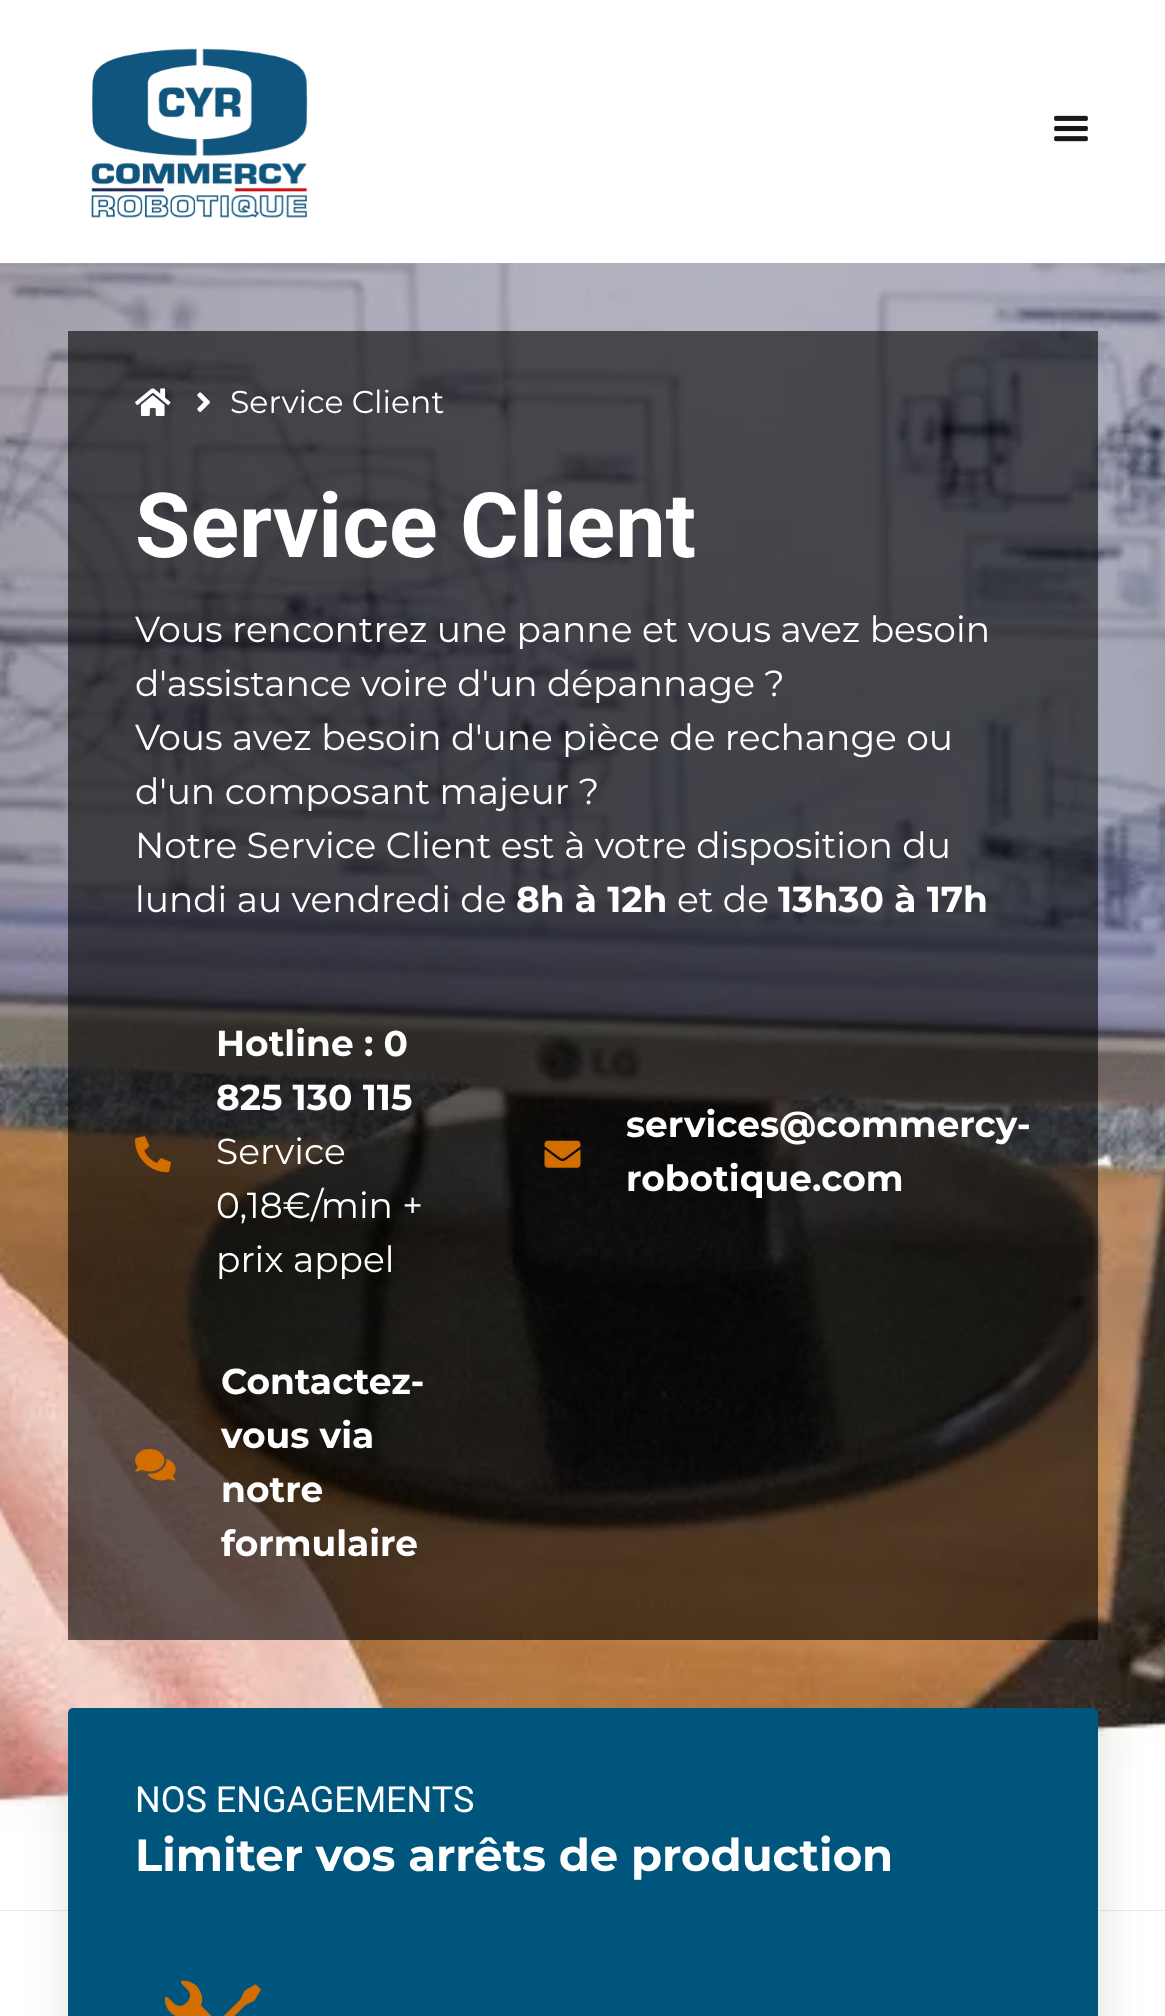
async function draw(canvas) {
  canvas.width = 1165;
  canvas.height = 2016;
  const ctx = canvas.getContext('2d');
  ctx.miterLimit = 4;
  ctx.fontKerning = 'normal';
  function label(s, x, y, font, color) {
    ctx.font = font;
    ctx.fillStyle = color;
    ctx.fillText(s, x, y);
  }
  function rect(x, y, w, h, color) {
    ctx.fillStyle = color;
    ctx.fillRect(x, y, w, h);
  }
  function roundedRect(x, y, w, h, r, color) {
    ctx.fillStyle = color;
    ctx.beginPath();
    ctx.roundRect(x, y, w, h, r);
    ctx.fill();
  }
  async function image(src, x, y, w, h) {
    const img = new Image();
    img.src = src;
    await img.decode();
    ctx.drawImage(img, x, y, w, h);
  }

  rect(0, 0, 1165, 2016, '#fff');
  await image('assets/img1.png', 91, 48, 217, 170);
  await image('assets/img2.png', 1054, 115, 34, 27);
  await image('assets/img3.png', 0, 263, 1165, 1648);
  rect(68, 331, 1030, 1309, '#00000099');
  await image('assets/img4.png', 135, 388, 36, 28);
  await image('assets/img5.png', 197, 392, 13, 20);
  label('Service Client', 230, 413, '31.5px Montserrat', '#fff');
  label('Service Client', 135, 557, 'bold 90px Roboto', '#fff');
  label('Vous rencontrez une panne et vous avez besoin', 135, 642, '36px Montserrat', '#fff');
  label('d\'assistance voire d\'un dépannage ?', 135, 696, '36px Montserrat', '#fff');
  label('Vous avez besoin d\'une pièce de rechange ou', 135, 750, '36px Montserrat', '#fff');
  label('d\'un composant majeur ?', 135, 804, '36px Montserrat', '#fff');
  label('Notre Service Client est à votre disposition du', 135, 858, '36px Montserrat', '#fff');
  label('lundi au vendredi de', 135, 912, '36px Montserrat', '#fff');
  label('8h à 12h', 516, 912, 'bold 36px Montserrat', '#fff');
  label('et de', 677, 912, '36px Montserrat', '#fff');
  label('13h30 à 17h', 778, 912, 'bold 36px Montserrat', '#fff');
  await image('assets/img6.png', 135, 1136, 36, 37);
  label('Hotline : 0', 216, 1056, 'bold 36px Montserrat', '#fff');
  label('825 130 115', 216, 1110, 'bold 36px Montserrat', '#fff');
  label('Service', 216, 1164, '36px Montserrat', '#fff');
  label('0,18€/min +', 216, 1218, '36px Montserrat', '#fff');
  label('prix appel', 216, 1272, '36px Montserrat', '#fff');
  await image('assets/img7.png', 544, 1140, 37, 28);
  label('services@commercy-', 626, 1137, 'bold 36px Montserrat', '#fff');
  label('robotique.com', 626, 1191, 'bold 36px Montserrat', '#fff');
  await image('assets/img8.png', 135, 1449, 41, 32);
  label('Contactez-', 221, 1394, 'bold 36px Montserrat', '#fff');
  label('vous via', 221, 1448, 'bold 36px Montserrat', '#fff');
  label('notre', 221, 1502, 'bold 36px Montserrat', '#fff');
  label('formulaire', 221, 1556, 'bold 36px Montserrat', '#fff');
  ctx.save();
  ctx.beginPath();
  ctx.rect(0, 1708, 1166, 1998);
  ctx.clip();
  ctx.fillStyle = '#5955552e';
  ctx.filter = 'blur(22.5px)';
  ctx.beginPath();
  ctx.roundRect(70, 1710, 1030, 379, 5);
  ctx.fill();
  ctx.filter = 'none';
  ctx.restore();
  roundedRect(68, 1708, 1030, 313, 5, '#00557c');
  label('NOS ENGAGEMENTS', 135, 1812, '36px Roboto', '#fff');
  label('Limiter vos arrêts de production', 135, 1871, 'bold 45px Montserrat', '#fff');
  await image('assets/img9.png', 164, 1980, 97, 36);
}

draw(document.querySelector('canvas'));
